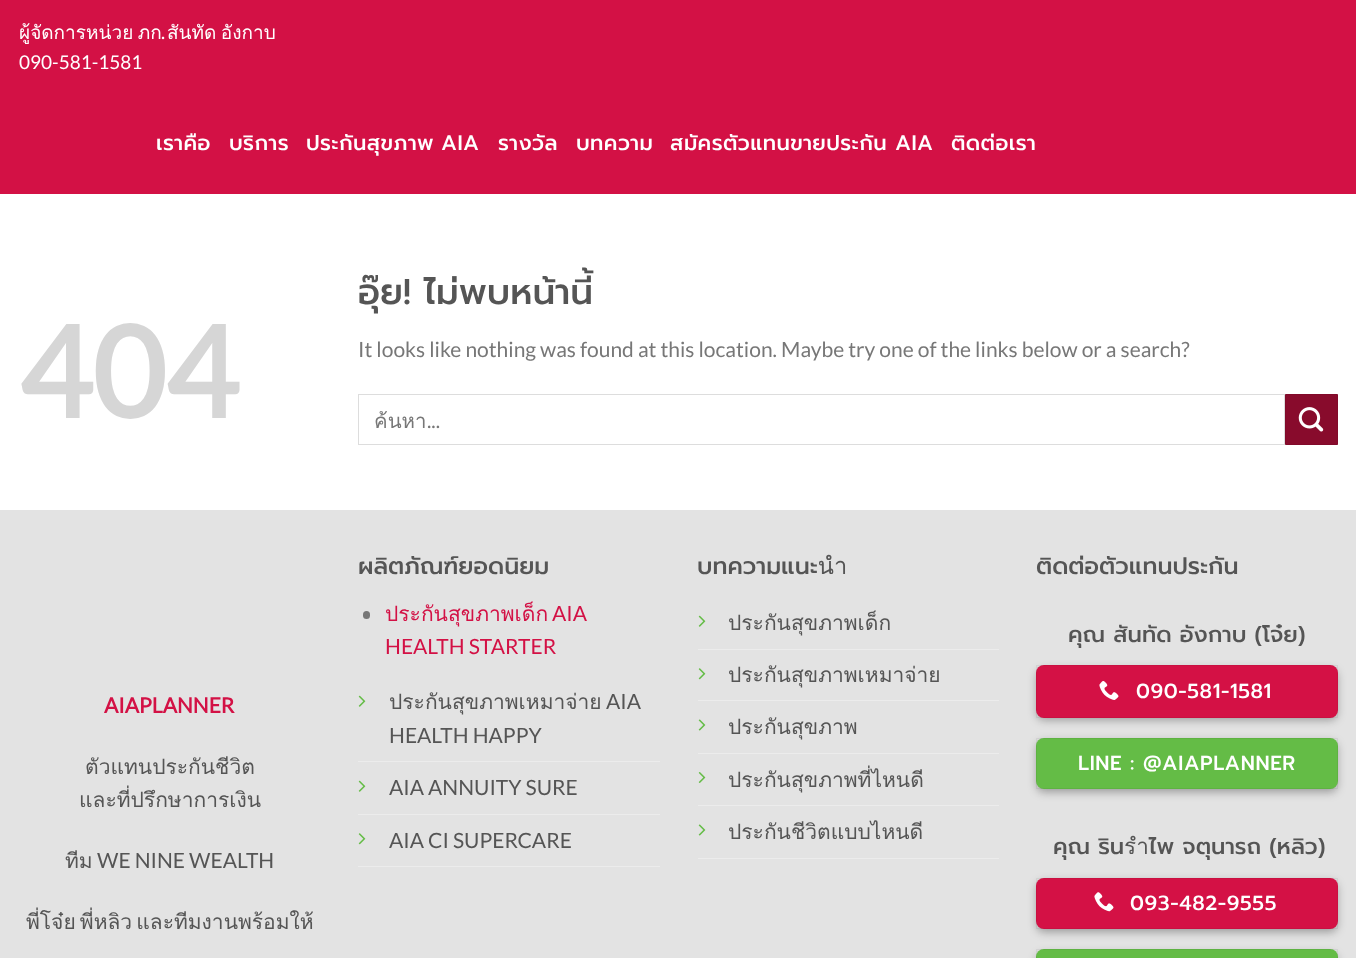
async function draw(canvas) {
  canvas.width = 1356;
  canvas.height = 958;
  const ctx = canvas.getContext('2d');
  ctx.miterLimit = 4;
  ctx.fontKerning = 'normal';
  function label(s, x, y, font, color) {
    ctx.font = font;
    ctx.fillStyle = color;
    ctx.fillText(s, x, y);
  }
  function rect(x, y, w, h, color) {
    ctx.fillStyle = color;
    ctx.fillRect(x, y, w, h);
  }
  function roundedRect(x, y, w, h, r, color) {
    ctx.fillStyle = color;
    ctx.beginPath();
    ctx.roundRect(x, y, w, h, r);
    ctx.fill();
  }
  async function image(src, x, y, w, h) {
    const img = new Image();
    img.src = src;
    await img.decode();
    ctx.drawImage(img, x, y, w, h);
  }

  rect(0, 0, 1356, 958, '#fff');
  rect(0, 0, 1356, 194, '#d31145');
  ctx.wordSpacing = '-2px';
  label('ผู้จัดการหน่วย ภก', 19, 39, '19px Loma', '#fff');
  ctx.wordSpacing = '0px';
  label('.', 161, 39, '19px Lato', '#fff');
  ctx.wordSpacing = '-2px';
  label('สันทัด อังกาบ', 167, 39, '19px Loma', '#fff');
  ctx.wordSpacing = '0px';
  label('090-581-1581', 19, 69, '19px Lato', '#fff');
  ctx.letterSpacing = '0.4px';
  label('เราคือ', 156, 150, '500 21px Prompt', '#fff');
  label('บริการ', 229, 150, '500 21px Prompt', '#fff');
  ctx.wordSpacing = '-1px';
  label('ประกันสุขภาพ AIA', 306, 150, '500 21px Prompt', '#fff');
  ctx.wordSpacing = '0px';
  label('รางวัล', 498, 150, '500 21px Prompt', '#fff');
  label('บทความ', 576, 150, '500 21px Prompt', '#fff');
  label('สมัครตัวแทนขายประกัน', 670, 150, '500 21px Prompt', '#fff');
  label('AIA', 895, 150, '500 21px Prompt', '#fff');
  label('ติดต่อเรา', 951, 150, '500 21px Prompt', '#fff');
  ctx.letterSpacing = '0px';
  label('404', 19, 418, 'bold 126px Lato', '#d6d6d6');
  label('อุ๊ย! ไม่พบหน้านี้', 358, 304, '500 35.75px Prompt', '#555');
  label('It looks like nothing was found at this location. Maybe try one of the links below or a search?', 358, 357, '21px Lato', '#777');
  ctx.strokeStyle = '#ddd';
  ctx.strokeRect(358.5, 394.5, 926, 50);
  ctx.save();
  ctx.beginPath();
  ctx.rect(374, 404, 890, 32);
  ctx.clip();
  label('ค้นหา', 374, 428, '20.4px Loma', '#777');
  ctx.restore();
  label('...', 427, 428, '20.4px Lato', '#777');
  ctx.fillStyle = '#880b2c';
  ctx.beginPath();
  ctx.rect(1285.5, 394.5, 52, 50);
  ctx.fill();
  ctx.strokeStyle = '#810a2a';
  ctx.stroke();
  await image('assets/img1.png', 1298, 407, 26, 25);
  rect(0, 510, 1356, 448, '#e3e3e3');
  label('AIAPLANNER', 104, 713, 'bold 21px Lato', '#d31145');
  label('ตัวแทนประกันชีวิต', 85, 774, '21px Loma', '#555');
  label('และที่ปรึกษาการเงิน', 79, 807, '21px Loma', '#555');
  label('ทีม', 65, 868, '21px Loma', '#555');
  label('WE NINE WEALTH', 97, 868, '21px Lato', '#555');
  ctx.wordSpacing = '-3px';
  label('พี่โจ๋ย พี่หลิว และทีมงานพร้อมให้', 26, 929, '21px Loma', '#555');
  ctx.wordSpacing = '0px';
  label('ผลิตภัณฑ์ยอดนิยม', 358, 574, '500 23.6px Prompt', '#555');
  roundedRect(363, 611, 7, 8, 3.5, '#777');
  label('ประกันสุขภาพเด็ก', 385, 621, '21px Loma', '#d31145');
  label('AIA', 552, 621, '21px Lato', '#d31145');
  label('HEALTH STARTER', 385, 654, '21px Lato', '#d31145');
  rect(358, 761, 302, 1, '#ececec');
  await image('assets/img2.png', 358, 695, 8, 12);
  label('ประกันสุขภาพเหมาจ่าย', 389, 709, '21px Loma', '#555');
  label('AIA', 606, 709, '21px Lato', '#555');
  label('HEALTH HAPPY', 389, 743, '21px Lato', '#555');
  rect(358, 814, 302, 1, '#ececec');
  await image('assets/img2.png', 358, 780, 8, 12);
  label('AIA ANNUITY SURE', 389, 795, '21px Lato', '#555');
  rect(358, 866, 302, 1, '#ececec');
  await image('assets/img3.png', 358, 833, 8, 12);
  label('AIA CI SUPERCARE', 389, 848, '21px Lato', '#555');
  label('บทความแนะนำ', 697, 574, '500 23.6px Prompt', '#555');
  rect(698, 649, 301, 1, '#ececec');
  await image('assets/img2.png', 698, 615, 8, 12);
  label('ประกันสุขภาพเด็ก', 728, 630, '21px Loma', '#555');
  rect(698, 700, 301, 1, '#ececec');
  await image('assets/img3.png', 698, 668, 8, 12);
  label('ประกันสุขภาพเหมาจ่าย', 728, 682, '21px Loma', '#555');
  rect(698, 753, 301, 1, '#ececec');
  await image('assets/img4.png', 698, 719, 8, 12);
  label('ประกันสุขภาพ', 728, 734, '21px Loma', '#555');
  rect(698, 805, 301, 1, '#ececec');
  await image('assets/img5.png', 698, 772, 8, 11);
  label('ประกันสุขภาพที่ไหนดี', 728, 787, '21px Loma', '#555');
  rect(698, 858, 301, 1, '#ececec');
  await image('assets/img4.png', 698, 824, 8, 12);
  label('ประกันชีวิตแบบไหนดี', 728, 839, '21px Loma', '#555');
  label('ติดต่อตัวแทนประกัน', 1036, 574, '500 23.6px Prompt', '#555');
  label('คุณ สันทัด อังกาบ (โจ๋ย)', 1068, 642, '500 22.5px Prompt', '#555');
  ctx.fillStyle = '#0000003b';
  ctx.filter = 'blur(4px)';
  ctx.beginPath();
  ctx.roundRect(1036, 669, 302, 52, 8);
  ctx.fill();
  ctx.filter = 'none';
  ctx.fillStyle = '#00000029';
  ctx.filter = 'blur(4px)';
  ctx.beginPath();
  ctx.roundRect(1041, 674, 292, 42, 2.5);
  ctx.fill();
  ctx.filter = 'none';
  roundedRect(1036, 665, 302, 53, 8, '#d41145');
  ctx.strokeStyle = '#0000000d';
  ctx.strokeRect(1036.5, 665.5, 301, 52);
  await image('assets/img6.png', 1099, 681, 20, 19);
  ctx.letterSpacing = '0.6px';
  label('090-581-1581', 1136, 698, '500 20.4px Prompt', '#fff');
  ctx.fillStyle = '#0000003b';
  ctx.filter = 'blur(4px)';
  ctx.beginPath();
  ctx.roundRect(1036, 741, 302, 52, 8);
  ctx.fill();
  ctx.filter = 'none';
  ctx.fillStyle = '#00000029';
  ctx.filter = 'blur(4px)';
  ctx.beginPath();
  ctx.roundRect(1041, 746, 292, 42, 2.5);
  ctx.fill();
  ctx.filter = 'none';
  roundedRect(1036, 738, 302, 51, 8, '#64bc46');
  ctx.strokeRect(1036.5, 738.5, 301, 50);
  label('LINE : @AIAPLANNER', 1078, 770, '500 20.4px Prompt', '#fff');
  ctx.letterSpacing = '0px';
  label('คุณ รินรำไพ จตุนารถ (หลิว)', 1053, 854, '500 22.5px Prompt', '#555');
  ctx.fillStyle = '#0000003b';
  ctx.filter = 'blur(4px)';
  ctx.beginPath();
  ctx.roundRect(1036, 881, 302, 52, 8);
  ctx.fill();
  ctx.filter = 'none';
  ctx.fillStyle = '#00000029';
  ctx.filter = 'blur(4px)';
  ctx.beginPath();
  ctx.roundRect(1041, 886, 292, 42, 2.5);
  ctx.fill();
  ctx.filter = 'none';
  roundedRect(1036, 878, 302, 51, 8, '#d41145');
  ctx.strokeRect(1036.5, 878.5, 301, 50);
  await image('assets/img7.png', 1094, 892, 20, 20);
  ctx.letterSpacing = '0.6px';
  label('093-482-9555', 1130, 910, '500 20.4px Prompt', '#fff');
  ctx.fillStyle = '#0000003b';
  ctx.filter = 'blur(4px)';
  ctx.beginPath();
  ctx.roundRect(1036, 953, 302, 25, 8);
  ctx.fill();
  ctx.filter = 'none';
  roundedRect(1036, 949, 302, 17, 8, '#64bc46');
  ctx.strokeRect(1036.5, 949.5, 301, 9);
}

draw(document.querySelector('canvas'));
